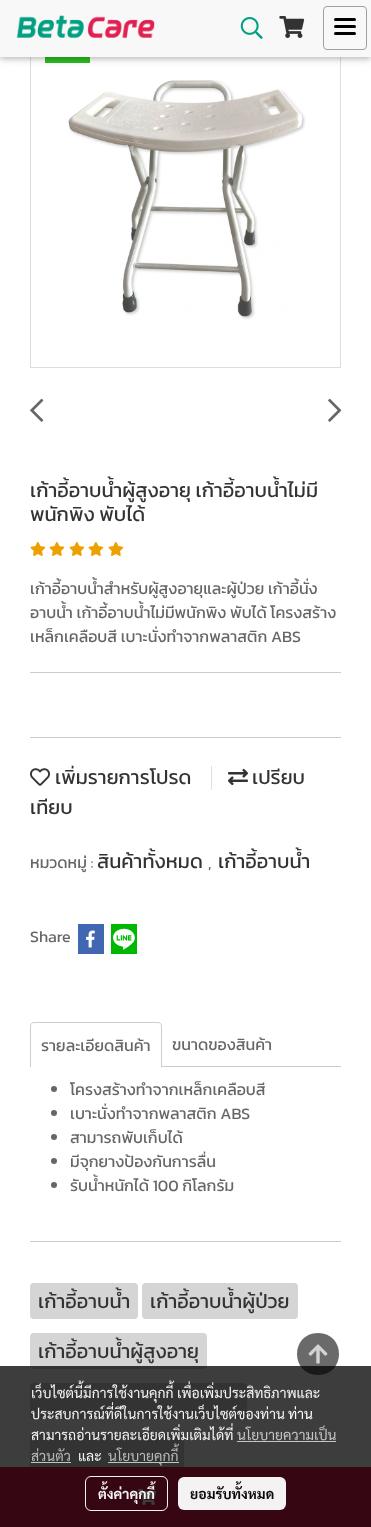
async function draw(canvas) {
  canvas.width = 371;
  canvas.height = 1527;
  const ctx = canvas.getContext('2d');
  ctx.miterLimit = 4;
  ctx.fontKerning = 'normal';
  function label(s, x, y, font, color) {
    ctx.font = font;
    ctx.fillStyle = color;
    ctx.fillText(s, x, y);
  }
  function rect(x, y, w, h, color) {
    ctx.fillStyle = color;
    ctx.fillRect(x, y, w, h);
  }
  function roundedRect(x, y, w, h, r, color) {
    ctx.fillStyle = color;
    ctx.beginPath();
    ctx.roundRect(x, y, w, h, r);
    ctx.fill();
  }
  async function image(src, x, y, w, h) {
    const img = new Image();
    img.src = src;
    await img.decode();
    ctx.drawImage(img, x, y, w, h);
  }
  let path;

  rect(0, 0, 371, 1527, '#fff');
  ctx.strokeStyle = '#ddd';
  ctx.strokeRect(30.5, 27.5, 310, 340);
  rect(45, 57, 45, 6, '#2bbe1f');
  ctx.fillStyle = '#0000001f';
  ctx.filter = 'blur(5px)';
  ctx.beginPath();
  ctx.rect(0, 2, 371, 57);
  ctx.fill();
  ctx.filter = 'none';
  ctx.fillStyle = '#00000029';
  ctx.filter = 'blur(2.5px)';
  ctx.beginPath();
  ctx.rect(0, 2, 371, 57);
  ctx.fill();
  ctx.filter = 'none';
  rect(0, 0, 371, 57, '#f8f8f8');
  await image('assets/img1.png', 16, 15, 139, 23);
  await image('assets/img2.png', 240, 17, 23, 22);
  await image('assets/img3.png', 279, 16, 26, 22);
  ctx.beginPath();
  ctx.roundRect(323.5, 6.5, 43, 43, 3.5);
  ctx.strokeStyle = '#9f9f9f';
  ctx.stroke();
  roundedRect(334, 25, 22, 3, 1.5, '#000');
  roundedRect(334, 18, 22, 3, 1.5, '#000');
  roundedRect(334, 32, 22, 3, 1.5, '#000');
  await image('assets/img4.png', 68, 80, 238, 240);
  await image('assets/img5.png', 30, 398, 14, 24);
  await image('assets/img6.png', 328, 398, 14, 24);
  label('เก้าอี้อาบน้ำผู้สูงอายุ เก้าอี้อาบน้ำไม่มี', 30, 497, '20px Kanit', '#333');
  label('พนักพิง พับได้', 30, 521, '20px Kanit', '#333');
  await image('assets/img7.png', 30, 542, 16, 14);
  await image('assets/img7.png', 49, 542, 16, 14);
  await image('assets/img7.png', 69, 542, 16, 14);
  await image('assets/img7.png', 88, 542, 16, 14);
  await image('assets/img7.png', 108, 542, 16, 14);
  label('เก้าอี้อาบน้ำสำหรับผู้สูงอายุและผู้ป่วย เก้าอี้นั่ง', 30, 594, '16px Kanit', '#666');
  label('อาบน้ำ เก้าอี้อาบน้ำไม่มีพนักพิง พับได้ โครงสร้าง', 30, 618, '16px Kanit', '#666');
  label('เหล็กเคลือบสี เบาะนั่งทำจากพลาสติก ABS', 30, 642, '16px Kanit', '#666');
  rect(30, 672, 311, 1, '#ccc');
  rect(30, 737, 311, 1, '#ccc');
  await image('assets/img8.png', 30, 768, 20, 18);
  label('เพิ่มรายการโปรด', 55, 784, '20px Kanit', '#333');
  rect(211, 766, 1, 24, '#dedede');
  await image('assets/img9.png', 228, 768, 20, 18);
  label('เปรียบ', 252, 784, '20px Kanit', '#333');
  label('เทียบ', 30, 814, '20px Kanit', '#333');
  label('หมวดหมู่ :', 30, 868, '16px Kanit', '#666');
  label('สินค้าทั้งหมด', 97, 868, '20px Kanit', '#333');
  label(',', 208, 868, '16px Kanit', '#666');
  label('เก้าอี้อาบน้ำ', 218, 868, '20px Kanit', '#333');
  label('Share', 30, 942, '16px Kanit', '#666');
  rect(78, 924, 26, 30, '#4267b2');
  await image('assets/img10.png', 86, 930, 9, 18);
  rect(111, 924, 26, 30, '#00b800');
  await image('assets/img11.png', 113, 928, 22, 22);
  roundedRect(30, 1433, 154, 36, 4, '#d5d5d5');
  rect(0, 1467, 371, 60, '#e02151');
  await image('assets/img12.png', 138, 1489, 18, 16);
  ctx.fillStyle = '#ccc';
  path = new Path2D('M34 1022H158C160 1022 162 1024 162 1026V1067H30V1026C30 1024 32 1022 34 1022ZM34 1023H158C160 1023 161 1024 161 1026V1067H31V1026C31 1024 32 1023 34 1023Z');
  ctx.fill(path, 'evenodd');
  label('รายละเอียดสินค้า', 41, 1051, '16px Kanit', '#666');
  label('ขนาดของสินค้า', 172, 1050, '16px Kanit', '#666');
  rect(162, 1066, 179, 1, '#ccc');
  ctx.fillStyle = '#666';
  ctx.beginPath();
  ctx.arc(54, 1089, 3, 0, 2 * Math.PI);
  ctx.fill();
  label('โครงสร้างทําจากเหล็กเคลือบสี', 70, 1095, '16px Kanit', '#666');
  ctx.beginPath();
  ctx.arc(54, 1113, 3, 0, 2 * Math.PI);
  ctx.fill();
  label('เบาะนั่งทําจากพลาสติก ABS', 70, 1119, '16px Kanit', '#666');
  ctx.beginPath();
  ctx.arc(54, 1137, 3, 0, 2 * Math.PI);
  ctx.fill();
  label('สามารถพับเก็บได้', 70, 1143, '16px Kanit', '#666');
  ctx.beginPath();
  ctx.arc(54, 1161, 3, 0, 2 * Math.PI);
  ctx.fill();
  label('มีจุกยางป้องกันการลื่น', 70, 1167, '16px Kanit', '#666');
  ctx.beginPath();
  ctx.arc(54, 1185, 3, 0, 2 * Math.PI);
  ctx.fill();
  label('รับน้ําหนักได้ 100 กิโลกรัม', 70, 1191, '16px Kanit', '#666');
  rect(30, 1241, 311, 1, '#ccc');
  roundedRect(30, 1283, 108, 36, 4, '#d5d5d5');
  label('เก้าอี้อาบน้ำ', 38, 1308, '20px Kanit', '#333');
  roundedRect(142, 1283, 156, 36, 4, '#d5d5d5');
  label('เก้าอี้อาบน้ำผู้ป่วย', 150, 1308, '20px Kanit', '#333');
  roundedRect(30, 1333, 177, 36, 4, '#d5d5d5');
  label('เก้าอี้อาบน้ำผู้สูงอายุ', 38, 1358, '20px Kanit', '#333');
  roundedRect(30, 1383, 217, 36, 4, '#d5d5d5');
  ctx.fillStyle = '#6b6a6a';
  path = new Path2D('M318 1333C290 1333 290 1375 318 1375C346 1375 346 1333 318 1333Z');
  ctx.fill(path);
  await image('assets/img13.png', 308, 1344, 20, 20);
  rect(0, 1366, 371, 161, '#000000c2');
  label('เว็บไซต์นี้มีการใช้งานคุกกี้ เพื่อเพิ่มประสิทธิภาพและ', 31, 1398, '14px Sarabun', '#f5f5f5');
  label('ประสบการณ์ที่ดีในการใช้งานเว็บไซต์ของท่าน', 31, 1419, '14px Sarabun', '#f5f5f5');
  label('ท่าน', 288, 1419, '14px Sarabun', '#fff');
  label('สามารถอ่านรายละเอียดเพิ่มเติมได้ที่', 31, 1440, '14px Sarabun', '#f5f5f5');
  label('นโยบายความเป็น', 237, 1440, '14px Sarabun', '#c5c5c5');
  rect(237, 1441, 99, 1, '#c5c5c5');
  label('ส่วนตัว', 31, 1461, '14px Sarabun', '#bababa');
  rect(31, 1462, 40, 1, '#c3c3c3');
  label('และ', 78, 1461, '14px Sarabun', '#f5f5f5');
  rect(108, 1462, 71, 1, '#c3c3c3');
  label('นโยบายคุกกี้', 108, 1461, '14px Sarabun', '#bababa');
  ctx.beginPath();
  ctx.roundRect(85.5, 1476.5, 82, 34, 5.5);
  ctx.strokeStyle = '#fffffff2';
  ctx.stroke();
  label('ตั้งค่าคุกกี้', 98, 1499, 'bold 14px Sarabun', '#f5f5f5');
  roundedRect(178, 1477, 108, 33, 6, '#fffffff2');
  label('ยอมรับทั้งหมด', 190, 1499, 'bold 14px Sarabun', '#0c0c0c');
}

draw(document.querySelector('canvas'));
